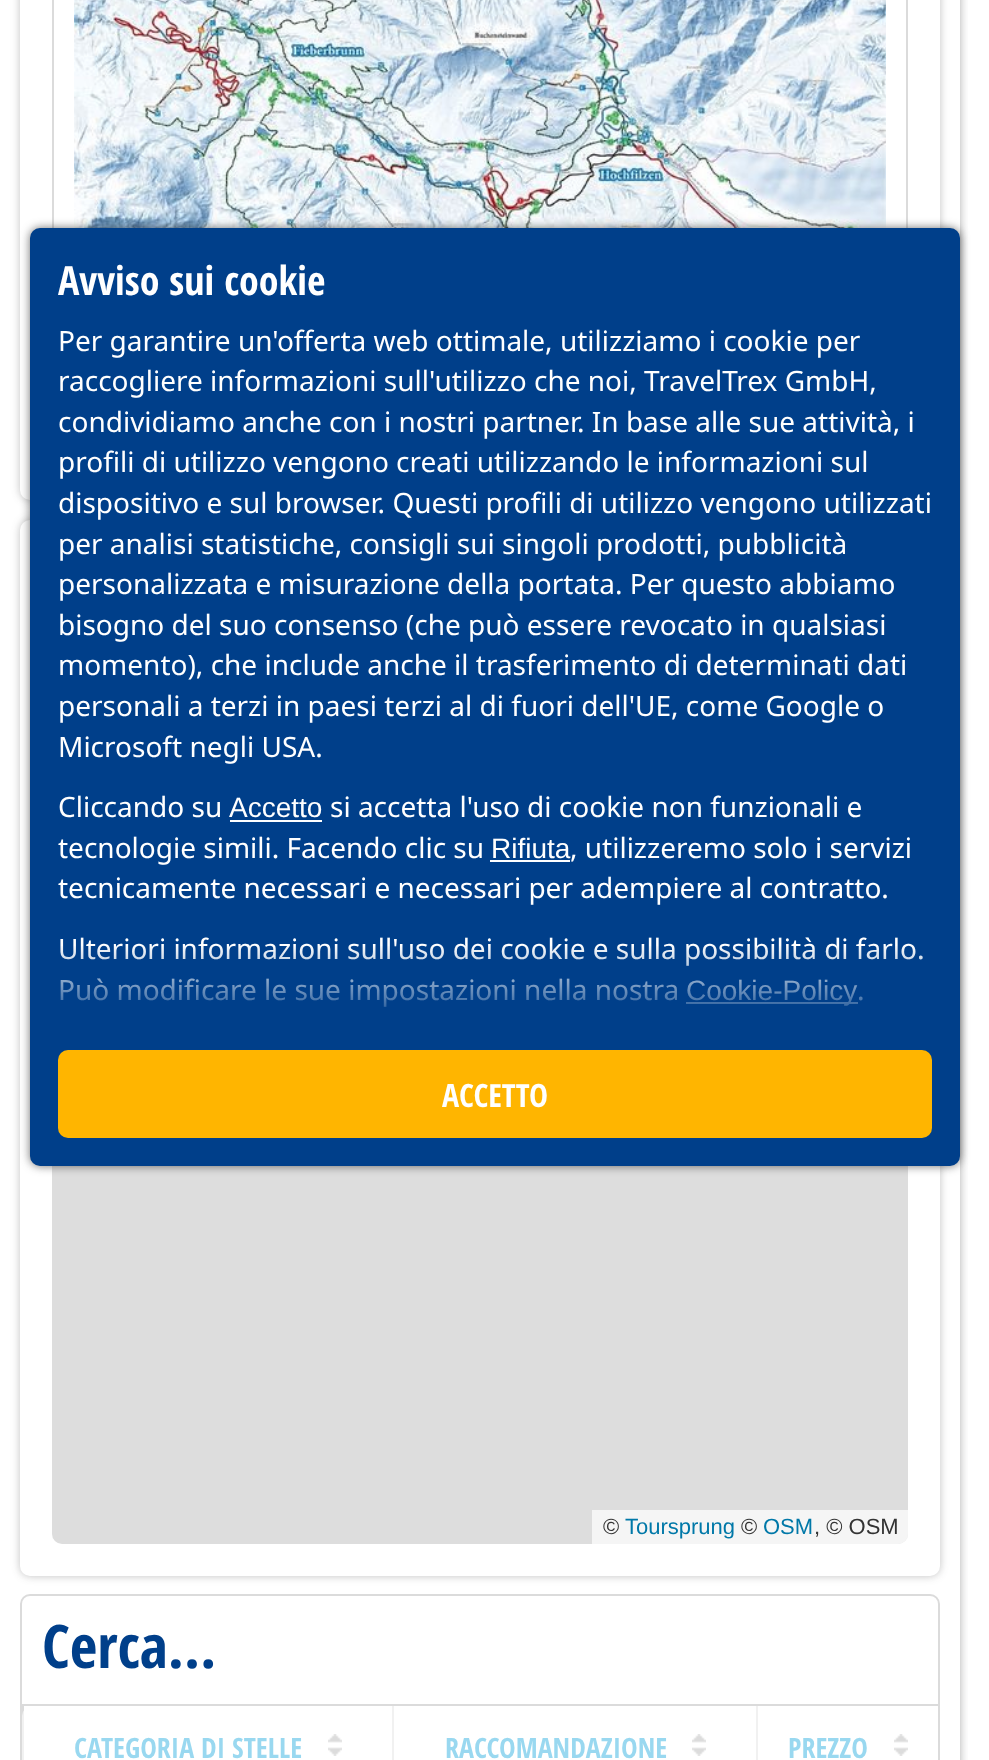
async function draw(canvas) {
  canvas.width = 989;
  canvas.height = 1760;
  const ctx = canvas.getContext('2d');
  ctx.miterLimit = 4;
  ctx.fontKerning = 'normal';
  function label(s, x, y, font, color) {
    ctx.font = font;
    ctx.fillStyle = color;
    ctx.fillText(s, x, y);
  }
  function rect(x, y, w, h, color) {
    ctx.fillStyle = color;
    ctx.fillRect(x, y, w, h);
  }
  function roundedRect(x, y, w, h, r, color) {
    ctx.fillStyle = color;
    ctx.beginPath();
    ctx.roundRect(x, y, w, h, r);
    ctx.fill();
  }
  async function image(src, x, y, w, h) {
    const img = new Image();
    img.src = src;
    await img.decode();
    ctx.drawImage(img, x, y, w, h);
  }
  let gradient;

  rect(0, 0, 989, 1760, '#fff');
  ctx.save();
  ctx.beginPath();
  ctx.rect(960, 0, 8, 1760);
  ctx.clip();
  ctx.fillStyle = '#33333366';
  ctx.filter = 'blur(5px)';
  ctx.beginPath();
  ctx.rect(0, -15, 960, 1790);
  ctx.fill();
  ctx.filter = 'none';
  ctx.restore();
  ctx.fillStyle = '#3333334d';
  ctx.filter = 'blur(4px)';
  ctx.beginPath();
  ctx.roundRect(20, -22, 920, 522, 10);
  ctx.fill();
  ctx.filter = 'none';
  roundedRect(20, -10, 920, 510, 10, '#fff');
  ctx.strokeStyle = '#dbdbdb';
  ctx.lineWidth = 2;
  ctx.strokeRect(53, -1, 854, 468);
  await image('assets/img1.png', 74, 0, 812, 228);
  ctx.fillStyle = '#3333334d';
  ctx.filter = 'blur(4px)';
  ctx.beginPath();
  ctx.roundRect(20, 520, 920, 1056, 10);
  ctx.fill();
  ctx.filter = 'none';
  roundedRect(20, 520, 920, 1056, 10, '#fff');
  ctx.fillStyle = '#ddd';
  ctx.beginPath();
  ctx.roundRect(52, 744, 856, 800, [0, 0, 10, 10]);
  ctx.fill();
  ctx.fillStyle = '#333333b3';
  ctx.filter = 'blur(5px)';
  ctx.beginPath();
  ctx.roundRect(30, 228, 930, 938, 10);
  ctx.fill();
  ctx.filter = 'none';
  roundedRect(30, 228, 930, 938, 10, '#003f8a');
  label('Avviso sui cookie', 58, 295, 'bold 40px Open Sans Condensed', '#fff');
  label('Per garantire un\'offerta web ottimale, utilizziamo i cookie per', 58, 351, '28px Noto Sans', '#fff');
  label('raccogliere informazioni sull\'utilizzo che noi, TravelTrex GmbH,', 58, 391, '28px Noto Sans', '#fff');
  label('condividiamo anche con i nostri partner. In base alle sue attività, i', 58, 432, '28px Noto Sans', '#fff');
  label('profili di utilizzo vengono creati utilizzando le informazioni sul', 58, 472, '28px Noto Sans', '#fff');
  label('dispositivo e sul browser. Questi profili di utilizzo vengono utilizzati', 58, 513, '28px Noto Sans', '#fff');
  label('per analisi statistiche, consigli sui singoli prodotti, pubblicità', 58, 554, '28px Noto Sans', '#fff');
  label('personalizzata e misurazione della portata. Per questo abbiamo', 58, 594, '28px Noto Sans', '#fff');
  label('bisogno del suo consenso (che può essere revocato in qualsiasi', 58, 635, '28px Noto Sans', '#fff');
  label('momento), che include anche il trasferimento di determinati dati', 58, 675, '28px Noto Sans', '#fff');
  label('personali a terzi in paesi terzi al di fuori dell\'UE, come Google o', 58, 716, '28px Noto Sans', '#fff');
  label('Microsoft negli USA.', 58, 757, '28px Noto Sans', '#fff');
  label('Cliccando su', 58, 817, '28px Noto Sans', '#fff');
  label('Accetto', 229, 817, '28px Liberation Sans', '#fff');
  rect(230, 820, 92, 2, '#fff');
  label('si accetta l\'uso di cookie non funzionali e', 330, 817, '28px Noto Sans', '#fff');
  label('tecnologie simili. Facendo clic su', 58, 858, '28px Noto Sans', '#fff');
  label('Rifiuta', 491, 858, '28px Liberation Sans', '#fff');
  rect(490, 860, 80, 2, '#fff');
  label(', utilizzeremo solo i servizi', 570, 858, '28px Noto Sans', '#fff');
  label('tecnicamente necessari e necessari per adempiere al contratto.', 58, 898, '28px Noto Sans', '#fff');
  label('Ulteriori informazioni sull\'uso dei cookie e sulla possibilità di farlo.', 58, 959, '28px Noto Sans', '#fff');
  label('Può modificare le sue impostazioni nella nostra', 58, 1000, '28px Noto Sans', '#fff');
  rect(686, 1002, 172, 2, '#fff');
  label('Cookie-Policy', 686, 1000, '28px Liberation Sans', '#fff');
  label('.', 857, 1000, '28px Noto Sans', '#fff');
  gradient = ctx.createLinearGradient(495, 944, 495, 1024);
  gradient.addColorStop(0, '#003f8a00');
  gradient.addColorStop(1, '#003f8a');
  ctx.fillStyle = gradient;
  ctx.fillRect(60, 946, 862, 61);
  roundedRect(58, 1050, 874, 88, 10, '#ffb500');
  label('ACCETTO', 442, 1107, 'bold 32px Open Sans Condensed', '#fff');
  ctx.fillStyle = '#ffffffb3';
  ctx.beginPath();
  ctx.roundRect(592, 1510, 316, 34, [0, 0, 10, 0]);
  ctx.fill();
  label('©', 603, 1534, '22px Liberation Sans', '#333');
  label('Toursprung', 625, 1534, '22px Liberation Sans', '#0078a8');
  label('©', 741, 1534, '22px Liberation Sans', '#333');
  label('OSM', 763, 1534, '22px Liberation Sans', '#0078a8');
  label(', © OSM', 814, 1534, '22px Liberation Sans', '#333');
  ctx.beginPath();
  ctx.roundRect(21, 1595, 918, 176, 9);
  ctx.stroke();
  label('Cerca…', 42, 1668, 'bold 60px Open Sans Condensed', '#003f8a');
  rect(22, 1704, 916, 2, '#dbdbdb');
  rect(22, 1706, 2, 54, '#dbdbdb');
  label('CATEGORIA DI STELLE', 74, 1758, 'bold 28px Open Sans Condensed', '#009fd9');
  await image('assets/img2.png', 328, 1734, 14, 22);
  rect(392, 1706, 2, 54, '#dbdbdb');
  label('RACCOMANDAZIONE', 445, 1758, 'bold 28px Open Sans Condensed', '#009fd9');
  await image('assets/img2.png', 692, 1734, 14, 22);
  rect(756, 1706, 2, 54, '#dbdbdb');
  label('PREZZO', 788, 1758, 'bold 28px Open Sans Condensed', '#009fd9');
  await image('assets/img2.png', 894, 1734, 14, 22);
  roundedRect(22, 1706, 916, 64, 10, '#ffffff99');
}

draw(document.querySelector('canvas'));
